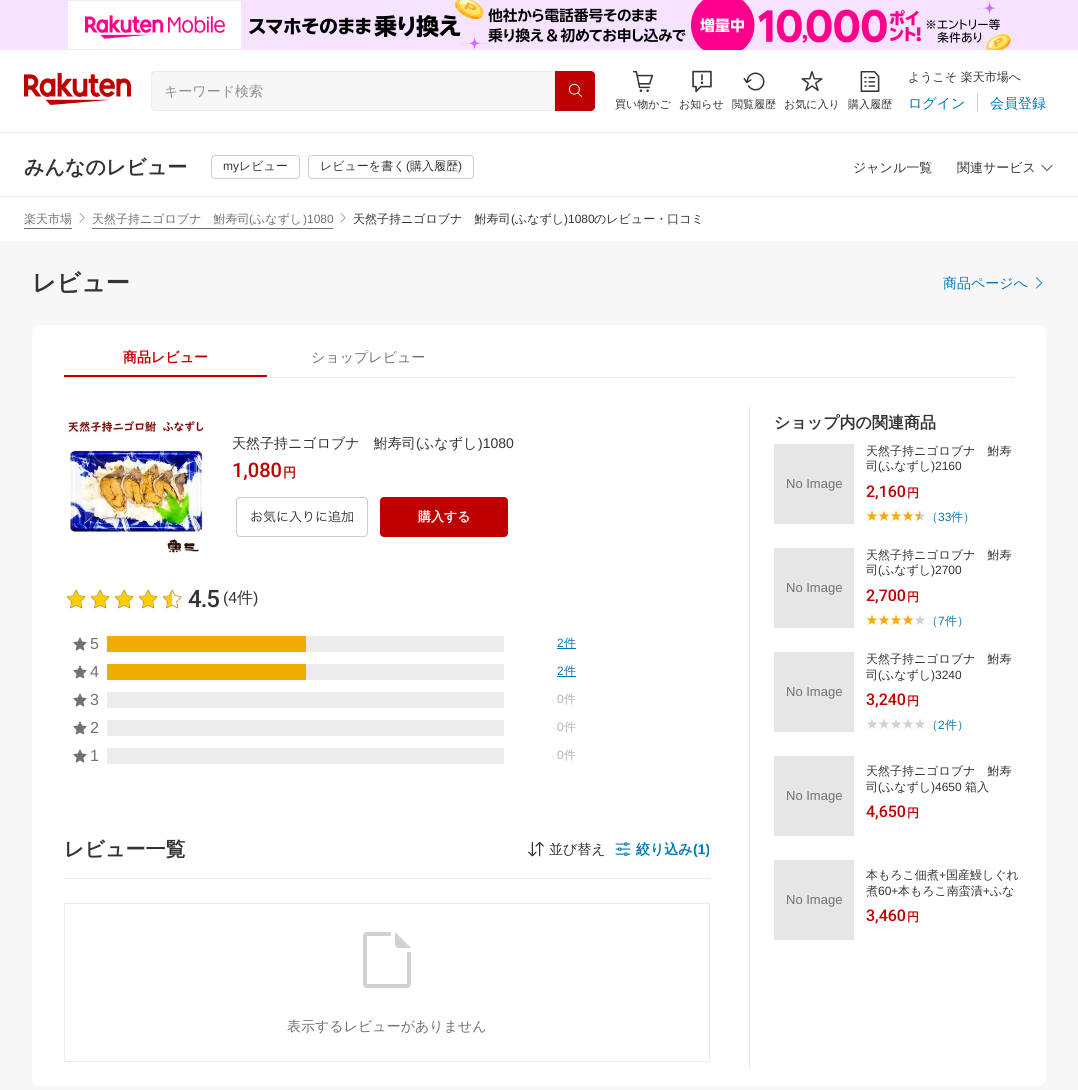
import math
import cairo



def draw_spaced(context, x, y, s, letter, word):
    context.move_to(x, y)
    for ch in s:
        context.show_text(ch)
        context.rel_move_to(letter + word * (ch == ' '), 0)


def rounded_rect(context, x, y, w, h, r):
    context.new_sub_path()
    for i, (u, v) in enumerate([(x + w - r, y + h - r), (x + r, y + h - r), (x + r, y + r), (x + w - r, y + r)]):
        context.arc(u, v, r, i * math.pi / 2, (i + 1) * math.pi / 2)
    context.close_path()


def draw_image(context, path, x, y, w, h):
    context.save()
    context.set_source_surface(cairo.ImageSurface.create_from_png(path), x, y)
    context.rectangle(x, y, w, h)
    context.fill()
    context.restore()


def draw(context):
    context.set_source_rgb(1, 1, 1)
    context.paint()
    draw_image(context, "images/1.png", 0, 0, 1078, 50)
    context.set_source_rgb(235 / 255, 235 / 255, 235 / 255)
    context.rectangle(0, 132, 1078, 1)
    context.fill()
    draw_image(context, "images/2.png", 24, 73, 107, 32)
    context.set_source_rgb(247 / 255, 247 / 255, 247 / 255)
    context.new_path()
    context.move_to(155, 71.5)
    context.line_to(554.5, 71.5)
    context.line_to(554.5, 110.5)
    context.line_to(155, 110.5)
    context.curve_to(153, 110.5, 151.5, 109, 151.5, 107)
    context.line_to(151.5, 75)
    context.curve_to(151.5, 73, 153, 71.5, 155, 71.5)
    context.close_path()
    context.fill_preserve()
    context.set_source_rgb(235 / 255, 235 / 255, 235 / 255)
    context.set_line_width(1)
    context.stroke()
    context.set_source_rgb(191 / 255, 0, 0)
    context.new_path()
    context.move_to(555, 71)
    context.line_to(591, 71)
    context.curve_to(593, 71, 595, 73, 595, 75)
    context.line_to(595, 107)
    context.curve_to(595, 109, 593, 111, 591, 111)
    context.line_to(555, 111)
    context.close_path()
    context.fill()
    draw_image(context, "images/3.png", 568, 83, 14, 14)
    context.set_source_rgb(204 / 255, 204 / 255, 204 / 255)
    context.rectangle(977, 94, 1, 18)
    context.fill()
    draw_image(context, "images/4.png", 632, 71, 22, 21)
    draw_image(context, "images/5.png", 692, 70, 20, 23)
    draw_image(context, "images/6.png", 743, 72, 22, 19)
    draw_image(context, "images/7.png", 801, 71, 22, 21)
    draw_image(context, "images/8.png", 860, 71, 20, 21)
    context.set_source_rgb(235 / 255, 235 / 255, 235 / 255)
    context.rectangle(0, 196, 1078, 1)
    context.fill()
    rounded_rect(context, 211.5, 155.5, 88, 23, 3.5)
    context.set_source_rgb(204 / 255, 204 / 255, 204 / 255)
    context.stroke()
    rounded_rect(context, 308.5, 155.5, 165, 23, 3.5)
    context.stroke()
    draw_image(context, "images/9.png", 1041, 164, 12, 7)
    context.set_source_rgb(113 / 255, 113 / 255, 113 / 255)
    context.rectangle(24, 228, 48, 1)
    context.fill()
    draw_image(context, "images/10.png", 79, 213, 6, 10)
    context.rectangle(92, 228, 241, 1)
    context.fill()
    draw_image(context, "images/10.png", 340, 213, 6, 10)
    context.set_source_rgb(247 / 255, 247 / 255, 247 / 255)
    context.rectangle(0, 241, 1078, 849)
    context.fill()
    draw_image(context, "images/11.png", 1036, 277, 7, 12)
    context.set_source_rgb(1, 1, 1)
    rounded_rect(context, 32, 325, 1014, 761, 8)
    context.fill()
    context.set_source_rgb(191 / 255, 0, 0)
    context.rectangle(64, 375, 203, 2)
    context.fill()
    context.set_source_rgb(235 / 255, 235 / 255, 235 / 255)
    context.rectangle(64, 377, 950, 1)
    context.fill()
    draw_image(context, "images/12.png", 68, 418, 136, 136)
    draw_image(context, "images/13.png", 236, 497, 132, 40)
    context.set_source_rgb(191 / 255, 0, 0)
    rounded_rect(context, 380, 497, 128, 40, 4)
    context.fill()
    draw_image(context, "images/14.png", 67, 589, 19, 20)
    draw_image(context, "images/14.png", 91, 589, 19, 20)
    draw_image(context, "images/14.png", 115, 589, 19, 20)
    draw_image(context, "images/14.png", 139, 589, 19, 20)
    draw_image(context, "images/15.png", 163, 589, 19, 20)
    draw_image(context, "images/16.png", 73, 637, 14, 14)
    context.set_source_rgb(235 / 255, 235 / 255, 235 / 255)
    context.rectangle(306, 636, 198, 16)
    context.fill()
    context.set_source_rgb(242 / 255, 171 / 255, 0)
    context.rectangle(107, 636, 199, 16)
    context.fill()
    context.set_source_rgb(0, 120 / 255, 181 / 255)
    context.rectangle(557, 648, 19, 1)
    context.fill()
    draw_image(context, "images/16.png", 73, 665, 14, 14)
    context.set_source_rgb(235 / 255, 235 / 255, 235 / 255)
    context.rectangle(306, 664, 198, 16)
    context.fill()
    context.set_source_rgb(242 / 255, 171 / 255, 0)
    context.rectangle(107, 664, 199, 16)
    context.fill()
    context.set_source_rgb(0, 120 / 255, 181 / 255)
    context.rectangle(557, 676, 19, 1)
    context.fill()
    draw_image(context, "images/16.png", 73, 693, 14, 14)
    context.set_source_rgb(235 / 255, 235 / 255, 235 / 255)
    context.rectangle(107, 692, 397, 16)
    context.fill()
    draw_image(context, "images/16.png", 73, 721, 14, 14)
    context.rectangle(107, 720, 397, 16)
    context.fill()
    draw_image(context, "images/16.png", 73, 749, 14, 14)
    context.rectangle(107, 748, 397, 16)
    context.fill()
    context.rectangle(64, 878, 646, 1)
    context.fill()
    draw_image(context, "images/17.png", 528, 841, 16, 16)
    draw_image(context, "images/18.png", 615, 842, 16, 14)
    context.rectangle(64.5, 903.5, 645, 158)
    context.stroke()
    draw_image(context, "images/19.png", 363, 932, 48, 56)
    context.rectangle(749, 406, 1, 664)
    context.fill()
    context.set_source_rgb(230 / 255, 230 / 255, 230 / 255)
    context.rectangle(774, 444, 80, 80)
    context.fill()
    draw_image(context, "images/20.png", 866, 510, 12, 11)
    draw_image(context, "images/20.png", 878, 510, 12, 11)
    draw_image(context, "images/20.png", 890, 510, 12, 11)
    draw_image(context, "images/20.png", 902, 510, 12, 11)
    draw_image(context, "images/21.png", 914, 510, 12, 11)
    context.rectangle(774, 548, 80, 80)
    context.fill()
    draw_image(context, "images/20.png", 866, 614, 12, 11)
    draw_image(context, "images/20.png", 878, 614, 12, 11)
    draw_image(context, "images/20.png", 890, 614, 12, 11)
    draw_image(context, "images/20.png", 902, 614, 12, 11)
    draw_image(context, "images/22.png", 914, 615, 12, 10)
    context.rectangle(774, 652, 80, 80)
    context.fill()
    draw_image(context, "images/22.png", 866, 719, 12, 10)
    draw_image(context, "images/22.png", 878, 719, 12, 10)
    draw_image(context, "images/22.png", 890, 719, 12, 10)
    draw_image(context, "images/22.png", 902, 719, 12, 10)
    draw_image(context, "images/22.png", 914, 719, 12, 10)
    context.rectangle(774, 756, 80, 80)
    context.fill()
    context.rectangle(774, 860, 80, 80)
    context.fill()
    context.select_font_face("WenQuanYi Zen Hei Medium")
    context.set_font_size(14)
    context.set_source_rgb(143 / 255, 143 / 255, 143 / 255)
    context.move_to(164, 96)
    context.show_text("キーワード検索")
    context.set_font_size(12)
    context.set_source_rgb(51 / 255, 51 / 255, 51 / 255)
    context.move_to(908, 81)
    context.show_text("ようこそ 楽天市場へ")
    context.set_font_size(14)
    context.set_source_rgb(0, 120 / 255, 181 / 255)
    context.move_to(908, 108)
    context.show_text("ログイン")
    context.move_to(990, 108)
    context.show_text("会員登録")
    context.set_font_size(11)
    context.set_source_rgb(51 / 255, 51 / 255, 51 / 255)
    context.move_to(615, 108)
    context.show_text("買い物かご")
    context.move_to(679, 108)
    context.show_text("お知らせ")
    context.move_to(732, 108)
    context.show_text("閲覧履歴")
    context.move_to(784, 108)
    context.show_text("お気に入り")
    context.move_to(848, 108)
    context.show_text("購入履歴")
    context.select_font_face("WenQuanYi Zen Hei", cairo.FontSlant.NORMAL, cairo.FontWeight.BOLD)
    context.set_font_size(20)
    context.move_to(24, 174)
    context.show_text("みんなのレビュー")
    context.select_font_face("Liberation Sans")
    context.set_font_size(12)
    context.move_to(223, 170)
    context.show_text("my")
    context.select_font_face("WenQuanYi Zen Hei Medium")
    context.move_to(239, 170)
    context.show_text("レビュー")
    context.move_to(320, 170)
    context.show_text("レビューを書く")
    context.select_font_face("Liberation Sans")
    context.move_to(406, 170)
    context.show_text("(")
    context.select_font_face("WenQuanYi Zen Hei Medium")
    context.move_to(410, 170)
    context.show_text("購入履歴")
    context.select_font_face("Liberation Sans")
    context.move_to(458, 170)
    context.show_text(")")
    context.select_font_face("WenQuanYi Zen Hei Medium")
    context.set_font_size(13)
    context.move_to(853, 172)
    context.show_text("ジャンル一覧")
    context.move_to(957, 172)
    context.show_text("関連サービス")
    context.set_font_size(12)
    context.set_source_rgb(113 / 255, 113 / 255, 113 / 255)
    context.move_to(24, 223)
    context.show_text("楽天市場")
    context.move_to(92, 223)
    context.show_text("天然子持ニゴロブナ　鮒寿司")
    context.select_font_face("Liberation Sans")
    context.move_to(249, 223)
    context.show_text("(")
    context.select_font_face("WenQuanYi Zen Hei Medium")
    context.move_to(253, 223)
    context.show_text("ふなずし")
    context.select_font_face("Liberation Sans")
    context.move_to(303, 223)
    context.show_text(")1080")
    context.select_font_face("WenQuanYi Zen Hei Medium")
    context.set_source_rgb(51 / 255, 51 / 255, 51 / 255)
    context.move_to(353, 223)
    context.show_text("天然子持ニゴロブナ　鮒寿司")
    context.select_font_face("Liberation Sans")
    context.move_to(511, 223)
    context.show_text("(")
    context.select_font_face("WenQuanYi Zen Hei Medium")
    context.move_to(515, 223)
    context.show_text("ふなずし")
    context.select_font_face("Liberation Sans")
    context.move_to(564, 223)
    context.show_text(")1080")
    context.select_font_face("WenQuanYi Zen Hei Medium")
    context.move_to(594, 223)
    context.show_text("のレビュー・口コミ")
    context.select_font_face("WenQuanYi Zen Hei", cairo.FontSlant.NORMAL, cairo.FontWeight.BOLD)
    context.set_font_size(24)
    context.move_to(32, 291)
    context.show_text("レビュー")
    context.select_font_face("WenQuanYi Zen Hei Medium")
    context.set_font_size(14)
    context.set_source_rgb(0, 120 / 255, 181 / 255)
    context.move_to(943, 288)
    context.show_text("商品ページへ")
    context.select_font_face("WenQuanYi Zen Hei", cairo.FontSlant.NORMAL, cairo.FontWeight.BOLD)
    context.set_source_rgb(191 / 255, 0, 0)
    context.move_to(123, 362)
    context.show_text("商品レビュー")
    context.select_font_face("WenQuanYi Zen Hei Medium")
    context.set_source_rgb(113 / 255, 113 / 255, 113 / 255)
    context.move_to(311, 362)
    context.show_text("ショップレビュー")
    context.set_source_rgb(51 / 255, 51 / 255, 51 / 255)
    context.move_to(232, 448)
    context.show_text("天然子持ニゴロブナ　鮒寿司")
    context.select_font_face("Liberation Sans")
    context.move_to(416, 448)
    context.show_text("(")
    context.select_font_face("WenQuanYi Zen Hei Medium")
    context.move_to(420, 448)
    context.show_text("ふなずし")
    context.select_font_face("Liberation Sans")
    context.move_to(478, 448)
    context.show_text(")1080")
    context.select_font_face("Roboto Medium")
    context.set_font_size(20)
    context.set_source_rgb(191 / 255, 0, 0)
    context.move_to(232, 477)
    context.show_text("1,080")
    context.select_font_face("WenQuanYi Zen Hei", cairo.FontSlant.NORMAL, cairo.FontWeight.BOLD)
    context.set_font_size(13)
    context.move_to(283, 477)
    context.show_text("円")
    context.set_source_rgb(1, 1, 1)
    context.move_to(418, 521)
    context.show_text("購入する")
    context.select_font_face("Roboto Medium")
    context.set_font_size(24)
    context.set_source_rgb(51 / 255, 51 / 255, 51 / 255)
    draw_spaced(context, 188, 607, "4.5", -1, 0)
    context.select_font_face("Liberation Sans")
    context.set_font_size(16)
    context.move_to(223, 603)
    context.show_text("(4")
    context.select_font_face("WenQuanYi Zen Hei Medium")
    context.move_to(237, 603)
    context.show_text("件")
    context.select_font_face("Liberation Sans")
    context.move_to(253, 603)
    context.show_text(")")
    context.set_source_rgb(113 / 255, 113 / 255, 113 / 255)
    context.move_to(90, 649)
    context.show_text("5")
    context.set_font_size(12)
    context.set_source_rgb(0, 120 / 255, 181 / 255)
    context.move_to(557, 647)
    context.show_text("2")
    context.select_font_face("WenQuanYi Zen Hei Medium")
    context.move_to(564, 647)
    context.show_text("件")
    context.select_font_face("Liberation Sans")
    context.set_font_size(16)
    context.set_source_rgb(113 / 255, 113 / 255, 113 / 255)
    context.move_to(90, 677)
    context.show_text("4")
    context.set_font_size(12)
    context.set_source_rgb(0, 120 / 255, 181 / 255)
    context.move_to(557, 675)
    context.show_text("2")
    context.select_font_face("WenQuanYi Zen Hei Medium")
    context.move_to(564, 675)
    context.show_text("件")
    context.select_font_face("Liberation Sans")
    context.set_font_size(16)
    context.set_source_rgb(113 / 255, 113 / 255, 113 / 255)
    context.move_to(90, 705)
    context.show_text("3")
    context.set_font_size(12)
    context.set_source_rgb(179 / 255, 179 / 255, 179 / 255)
    context.move_to(557, 703)
    context.show_text("0")
    context.select_font_face("WenQuanYi Zen Hei Medium")
    context.move_to(564, 703)
    context.show_text("件")
    context.select_font_face("Liberation Sans")
    context.set_font_size(16)
    context.set_source_rgb(113 / 255, 113 / 255, 113 / 255)
    context.move_to(90, 733)
    context.show_text("2")
    context.set_font_size(12)
    context.set_source_rgb(179 / 255, 179 / 255, 179 / 255)
    context.move_to(557, 731)
    context.show_text("0")
    context.select_font_face("WenQuanYi Zen Hei Medium")
    context.move_to(564, 731)
    context.show_text("件")
    context.select_font_face("Liberation Sans")
    context.set_font_size(16)
    context.set_source_rgb(113 / 255, 113 / 255, 113 / 255)
    context.move_to(90, 761)
    context.show_text("1")
    context.set_font_size(12)
    context.set_source_rgb(179 / 255, 179 / 255, 179 / 255)
    context.move_to(557, 759)
    context.show_text("0")
    context.select_font_face("WenQuanYi Zen Hei Medium")
    context.move_to(564, 759)
    context.show_text("件")
    context.select_font_face("WenQuanYi Zen Hei", cairo.FontSlant.NORMAL, cairo.FontWeight.BOLD)
    context.set_font_size(20)
    context.set_source_rgb(51 / 255, 51 / 255, 51 / 255)
    context.move_to(64, 856)
    context.show_text("レビュー一覧")
    context.select_font_face("WenQuanYi Zen Hei Medium")
    context.set_font_size(14)
    context.move_to(549, 854)
    context.show_text("並び替え")
    context.select_font_face("WenQuanYi Zen Hei", cairo.FontSlant.NORMAL, cairo.FontWeight.BOLD)
    context.set_source_rgb(0, 120 / 255, 181 / 255)
    context.move_to(636, 854)
    context.show_text("絞り込み")
    context.select_font_face("Liberation Sans", cairo.FontSlant.NORMAL, cairo.FontWeight.BOLD)
    context.move_to(693, 854)
    context.show_text("(1)")
    context.select_font_face("WenQuanYi Zen Hei Medium")
    context.set_source_rgb(113 / 255, 113 / 255, 113 / 255)
    context.move_to(287, 1031)
    context.show_text("表示するレビューがありません")
    context.select_font_face("WenQuanYi Zen Hei", cairo.FontSlant.NORMAL, cairo.FontWeight.BOLD)
    context.set_font_size(16)
    context.set_source_rgb(51 / 255, 51 / 255, 51 / 255)
    context.move_to(774, 428)
    context.show_text("ショップ内の関連商品")
    context.select_font_face("Liberation Sans")
    context.set_font_size(13)
    context.set_source_rgb(113 / 255, 113 / 255, 113 / 255)
    context.move_to(786, 488)
    context.show_text("No Image")
    context.select_font_face("WenQuanYi Zen Hei Medium")
    context.set_font_size(12)
    context.set_source_rgb(51 / 255, 51 / 255, 51 / 255)
    context.move_to(866, 455)
    context.show_text("天然子持ニゴロブナ　鮒寿")
    context.move_to(866, 470)
    context.show_text("司")
    context.select_font_face("Liberation Sans")
    context.move_to(878, 470)
    context.show_text("(")
    context.select_font_face("WenQuanYi Zen Hei Medium")
    context.move_to(882, 470)
    context.show_text("ふなずし")
    context.select_font_face("Liberation Sans")
    context.move_to(931, 470)
    context.show_text(")2160")
    context.select_font_face("Roboto Medium")
    context.set_font_size(16)
    context.set_source_rgb(191 / 255, 0, 0)
    context.move_to(866, 497)
    context.show_text("2,160")
    context.select_font_face("WenQuanYi Zen Hei", cairo.FontSlant.NORMAL, cairo.FontWeight.BOLD)
    context.set_font_size(12)
    context.move_to(907, 497)
    context.show_text("円")
    context.select_font_face("WenQuanYi Zen Hei Medium")
    context.set_source_rgb(0, 120 / 255, 181 / 255)
    context.move_to(926, 521)
    context.show_text("（")
    context.select_font_face("Liberation Sans")
    context.move_to(938, 521)
    context.show_text("33")
    context.select_font_face("WenQuanYi Zen Hei Medium")
    context.move_to(951, 521)
    context.show_text("件）")
    context.select_font_face("Liberation Sans")
    context.set_font_size(13)
    context.set_source_rgb(113 / 255, 113 / 255, 113 / 255)
    context.move_to(786, 592)
    context.show_text("No Image")
    context.select_font_face("WenQuanYi Zen Hei Medium")
    context.set_font_size(12)
    context.set_source_rgb(51 / 255, 51 / 255, 51 / 255)
    context.move_to(866, 559)
    context.show_text("天然子持ニゴロブナ　鮒寿")
    context.move_to(866, 574)
    context.show_text("司")
    context.select_font_face("Liberation Sans")
    context.move_to(878, 574)
    context.show_text("(")
    context.select_font_face("WenQuanYi Zen Hei Medium")
    context.move_to(882, 574)
    context.show_text("ふなずし")
    context.select_font_face("Liberation Sans")
    context.move_to(931, 574)
    context.show_text(")2700")
    context.select_font_face("Roboto Medium")
    context.set_font_size(16)
    context.set_source_rgb(191 / 255, 0, 0)
    context.move_to(866, 601)
    context.show_text("2,700")
    context.select_font_face("WenQuanYi Zen Hei", cairo.FontSlant.NORMAL, cairo.FontWeight.BOLD)
    context.set_font_size(12)
    context.move_to(907, 601)
    context.show_text("円")
    context.select_font_face("WenQuanYi Zen Hei Medium")
    context.set_source_rgb(0, 120 / 255, 181 / 255)
    context.move_to(926, 625)
    context.show_text("（")
    context.select_font_face("Liberation Sans")
    context.move_to(938, 625)
    context.show_text("7")
    context.select_font_face("WenQuanYi Zen Hei Medium")
    context.move_to(945, 625)
    context.show_text("件）")
    context.select_font_face("Liberation Sans")
    context.set_font_size(13)
    context.set_source_rgb(113 / 255, 113 / 255, 113 / 255)
    context.move_to(786, 696)
    context.show_text("No Image")
    context.select_font_face("WenQuanYi Zen Hei Medium")
    context.set_font_size(12)
    context.set_source_rgb(51 / 255, 51 / 255, 51 / 255)
    context.move_to(866, 663)
    context.show_text("天然子持ニゴロブナ　鮒寿")
    context.move_to(866, 679)
    context.show_text("司")
    context.select_font_face("Liberation Sans")
    context.move_to(878, 679)
    context.show_text("(")
    context.select_font_face("WenQuanYi Zen Hei Medium")
    context.move_to(882, 679)
    context.show_text("ふなずし")
    context.select_font_face("Liberation Sans")
    context.move_to(931, 679)
    context.show_text(")3240")
    context.select_font_face("Roboto Medium")
    context.set_font_size(16)
    context.set_source_rgb(191 / 255, 0, 0)
    context.move_to(866, 705)
    context.show_text("3,240")
    context.select_font_face("WenQuanYi Zen Hei", cairo.FontSlant.NORMAL, cairo.FontWeight.BOLD)
    context.set_font_size(12)
    context.move_to(907, 705)
    context.show_text("円")
    context.select_font_face("WenQuanYi Zen Hei Medium")
    context.set_source_rgb(0, 120 / 255, 181 / 255)
    context.move_to(926, 729)
    context.show_text("（")
    context.select_font_face("Liberation Sans")
    context.move_to(938, 729)
    context.show_text("2")
    context.select_font_face("WenQuanYi Zen Hei Medium")
    context.move_to(945, 729)
    context.show_text("件）")
    context.select_font_face("Liberation Sans")
    context.set_font_size(13)
    context.set_source_rgb(113 / 255, 113 / 255, 113 / 255)
    context.move_to(786, 800)
    context.show_text("No Image")
    context.select_font_face("WenQuanYi Zen Hei Medium")
    context.set_font_size(12)
    context.set_source_rgb(51 / 255, 51 / 255, 51 / 255)
    context.move_to(866, 775)
    context.show_text("天然子持ニゴロブナ　鮒寿")
    context.move_to(866, 791)
    context.show_text("司")
    context.select_font_face("Liberation Sans")
    context.move_to(878, 791)
    context.show_text("(")
    context.select_font_face("WenQuanYi Zen Hei Medium")
    context.move_to(882, 791)
    context.show_text("ふなずし")
    context.select_font_face("Liberation Sans")
    context.move_to(931, 791)
    context.show_text(")4650")
    context.select_font_face("WenQuanYi Zen Hei Medium")
    context.move_to(965, 791)
    context.show_text("箱入")
    context.select_font_face("Roboto Medium")
    context.set_font_size(16)
    context.set_source_rgb(191 / 255, 0, 0)
    context.move_to(866, 817)
    context.show_text("4,650")
    context.select_font_face("WenQuanYi Zen Hei", cairo.FontSlant.NORMAL, cairo.FontWeight.BOLD)
    context.set_font_size(12)
    context.move_to(907, 817)
    context.show_text("円")
    context.select_font_face("Liberation Sans")
    context.set_font_size(13)
    context.set_source_rgb(113 / 255, 113 / 255, 113 / 255)
    context.move_to(786, 904)
    context.show_text("No Image")
    context.select_font_face("WenQuanYi Zen Hei Medium")
    context.set_font_size(12)
    context.set_source_rgb(51 / 255, 51 / 255, 51 / 255)
    context.move_to(866, 879)
    context.show_text("本もろこ佃煮")
    context.select_font_face("Liberation Sans")
    context.move_to(939, 879)
    context.show_text("+")
    context.select_font_face("WenQuanYi Zen Hei Medium")
    context.move_to(946, 879)
    context.show_text("国産鰻しぐれ")
    context.move_to(866, 895)
    context.show_text("煮")
    context.select_font_face("Liberation Sans")
    context.move_to(878, 895)
    context.show_text("60+")
    context.select_font_face("WenQuanYi Zen Hei Medium")
    context.move_to(898, 895)
    context.show_text("本もろこ南蛮漬")
    context.select_font_face("Liberation Sans")
    context.move_to(983, 895)
    context.show_text("+")
    context.select_font_face("WenQuanYi Zen Hei Medium")
    context.move_to(990, 895)
    context.show_text("ふな")
    context.select_font_face("Roboto Medium")
    context.set_font_size(16)
    context.set_source_rgb(191 / 255, 0, 0)
    context.move_to(866, 921)
    context.show_text("3,460")
    context.select_font_face("WenQuanYi Zen Hei", cairo.FontSlant.NORMAL, cairo.FontWeight.BOLD)
    context.set_font_size(12)
    context.move_to(907, 921)
    context.show_text("円")


surface = cairo.ImageSurface(cairo.Format.RGB24, 1078, 1090)
context = cairo.Context(surface)
options = cairo.FontOptions()
options.set_hint_metrics(cairo.HintMetrics.OFF)
options.set_hint_style(cairo.HintStyle.NONE)
context.set_font_options(options)
context.set_miter_limit(4)
draw(context)
surface.write_to_png("out.png")
